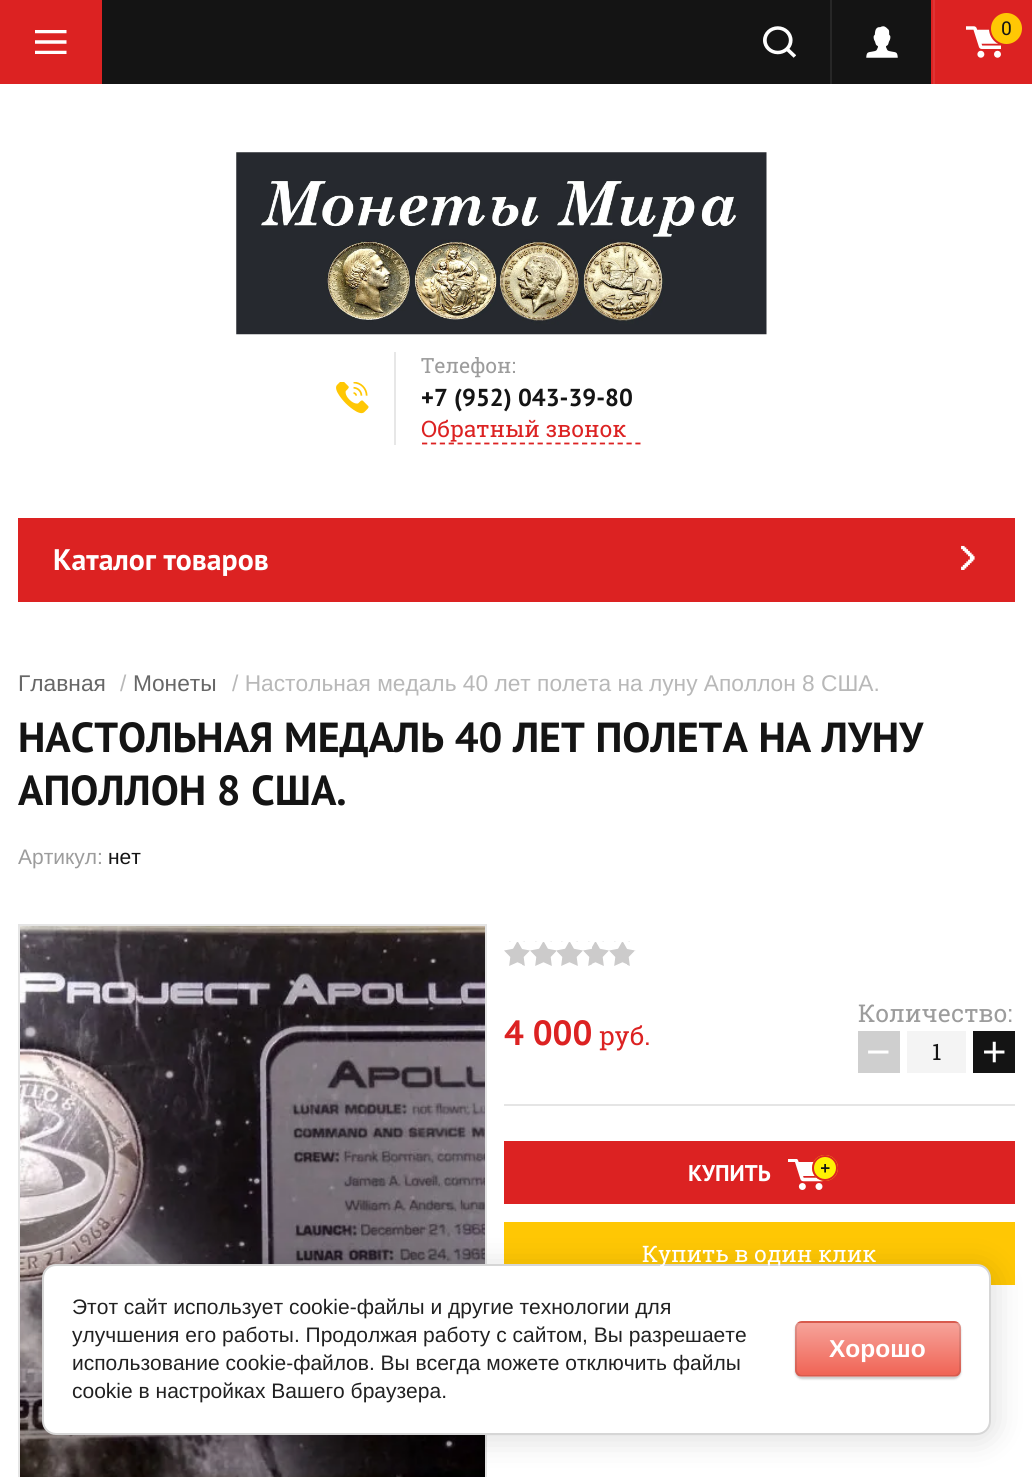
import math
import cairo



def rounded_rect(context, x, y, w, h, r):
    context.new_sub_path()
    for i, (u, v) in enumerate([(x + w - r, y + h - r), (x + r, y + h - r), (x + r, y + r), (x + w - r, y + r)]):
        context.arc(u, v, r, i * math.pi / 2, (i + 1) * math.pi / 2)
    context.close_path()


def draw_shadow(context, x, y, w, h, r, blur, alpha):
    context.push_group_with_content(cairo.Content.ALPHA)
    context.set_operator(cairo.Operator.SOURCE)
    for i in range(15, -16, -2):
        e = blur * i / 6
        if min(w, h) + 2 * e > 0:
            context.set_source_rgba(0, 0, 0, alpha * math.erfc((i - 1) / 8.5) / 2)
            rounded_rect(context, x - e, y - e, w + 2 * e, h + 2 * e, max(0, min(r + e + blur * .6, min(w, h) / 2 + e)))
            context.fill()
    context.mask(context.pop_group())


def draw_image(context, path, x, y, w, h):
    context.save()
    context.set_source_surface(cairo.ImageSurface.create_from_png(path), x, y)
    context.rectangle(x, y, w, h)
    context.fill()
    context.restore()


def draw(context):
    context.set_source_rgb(1, 1, 1)
    context.paint()
    context.set_source_rgb(20 / 255, 20 / 255, 20 / 255)
    context.rectangle(102, 0, 829, 84)
    context.fill()
    context.set_source_rgb(220 / 255, 34 / 255, 34 / 255)
    context.rectangle(0, 0, 102, 84)
    context.fill()
    draw_image(context, "images/1.png", 35, 30, 32, 24)
    draw_image(context, "images/2.png", 763, 26, 33, 32)
    draw_image(context, "images/3.png", 866, 26, 32, 32)
    context.rectangle(931, 0, 101, 84)
    context.fill()
    context.set_source_rgb(223 / 255, 52 / 255, 52 / 255)
    context.rectangle(933, 0, 2, 84)
    context.fill()
    context.set_source_rgb(39 / 255, 39 / 255, 39 / 255)
    context.rectangle(830, 0, 2, 84)
    context.fill()
    draw_image(context, "images/4.png", 966, 26, 35, 32)
    context.set_source_rgb(1, 199 / 255, 4 / 255)
    context.arc(1006.5, 28.5, 16.5, 0, 2 * math.pi)
    context.fill_preserve()
    context.set_source_rgb(220 / 255, 34 / 255, 34 / 255)
    context.stroke()
    draw_image(context, "images/5.png", 236, 152, 531, 183)
    context.set_source_rgb(231 / 255, 231 / 255, 231 / 255)
    context.rectangle(394, 352, 2, 93)
    context.fill()
    draw_image(context, "images/6.png", 336, 382, 33, 32)
    context.new_path()
    context.move_to(422, 443.5)
    context.line_to(640.5, 443.5)
    context.set_source_rgb(220 / 255, 34 / 255, 34 / 255)
    context.set_line_width(1.8)
    context.set_dash([5.25, 3.64])
    context.stroke()
    context.rectangle(18, 518, 997, 84)
    context.fill()
    draw_image(context, "images/7.png", 961, 545, 14, 25)
    draw_image(context, "images/8.png", 20, 926, 465, 551)
    context.rectangle(19, 925, 467, 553)
    context.set_source_rgb(229 / 255, 229 / 255, 229 / 255)
    context.set_line_width(2)
    context.set_dash([])
    context.stroke()
    draw_image(context, "images/9.png", 504, 941, 132, 25)
    context.set_source_rgb(207 / 255, 207 / 255, 207 / 255)
    context.rectangle(858, 1031, 42, 42)
    context.fill()
    context.set_source_rgb(244 / 255, 244 / 255, 244 / 255)
    context.rectangle(907, 1031, 59, 42)
    context.fill()
    context.set_source_rgb(20 / 255, 20 / 255, 20 / 255)
    context.rectangle(973, 1031, 42, 42)
    context.fill()
    context.set_source_rgb(229 / 255, 229 / 255, 229 / 255)
    context.rectangle(504, 1104, 511, 2)
    context.fill()
    context.set_source_rgb(220 / 255, 34 / 255, 34 / 255)
    context.rectangle(504, 1141, 511, 63)
    context.fill()
    draw_image(context, "images/10.png", 788, 1159, 35, 31)
    context.set_source_rgb(1, 240 / 255, 3 / 255)
    context.arc(825, 1168, 13, 0, 2 * math.pi)
    context.fill()
    draw_image(context, "images/11.png", 821, 1164, 9, 9)
    context.arc(825, 1168, 12, 0, 2 * math.pi)
    context.set_source_rgb(220 / 255, 34 / 255, 34 / 255)
    context.stroke()
    context.set_source_rgb(1, 199 / 255, 4 / 255)
    context.rectangle(504, 1222, 511, 63)
    context.fill()
    context.set_source_rgb(0, 0, 0)
    draw_shadow(context, 46, 1267, 948, 172, 14, 16, 0.14)
    context.set_source_rgb(1, 1, 1)
    rounded_rect(context, 43, 1265, 947, 169, 13)
    context.fill_preserve()
    context.set_source_rgb(214 / 255, 214 / 255, 214 / 255)
    context.stroke()
    context.set_source_rgb(0, 0, 0)
    draw_shadow(context, 795, 1323, 166, 56, 7, 1, 0.2)
    context.save()
    rounded_rect(context, 795, 1321, 166, 56, 7)
    context.clip()
    gradient = cairo.LinearGradient(878, 1271, 878, 1323)
    gradient.add_color_stop_rgba(0, 246 / 255, 163 / 255, 154 / 255, 1)
    gradient.add_color_stop_rgba(1, 240 / 255, 99 / 255, 84 / 255, 1)
    context.set_source(gradient)
    context.rectangle(795, 1321, 166, 2)
    context.fill()
    gradient = cairo.LinearGradient(878, 1323, 878, 1376)
    gradient.add_color_stop_rgba(0, 246 / 255, 163 / 255, 154 / 255, 1)
    gradient.add_color_stop_rgba(1, 240 / 255, 99 / 255, 84 / 255, 1)
    context.set_source(gradient)
    context.rectangle(795, 1323, 166, 53)
    context.fill()
    gradient = cairo.LinearGradient(878, 1376, 878, 1428)
    gradient.add_color_stop_rgba(0, 246 / 255, 163 / 255, 154 / 255, 1)
    gradient.add_color_stop_rgba(1, 240 / 255, 99 / 255, 84 / 255, 1)
    context.set_source(gradient)
    context.rectangle(795, 1376, 166, 1)
    context.fill()
    context.restore()
    rounded_rect(context, 796, 1322, 164, 54, 6)
    context.set_source_rgba(0, 0, 0, 0.1)
    context.stroke()
    context.select_font_face("Roboto Slab")
    context.set_font_size(19)
    context.set_source_rgb(20 / 255, 20 / 255, 20 / 255)
    context.move_to(1001, 35)
    context.show_text("0")
    context.set_font_size(21)
    context.set_source_rgb(156 / 255, 156 / 255, 156 / 255)
    context.move_to(421, 373)
    context.show_text("Телефон:")
    context.select_font_face("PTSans", cairo.FontSlant.NORMAL, cairo.FontWeight.BOLD)
    context.set_font_size(24.5)
    context.set_source_rgb(20 / 255, 20 / 255, 20 / 255)
    context.move_to(421, 406)
    context.show_text("+7 (952) 043-39-80")
    context.select_font_face("Roboto Slab")
    context.set_font_size(22.75)
    context.set_source_rgb(220 / 255, 34 / 255, 34 / 255)
    context.move_to(421, 437)
    context.show_text("Обратный звонок")
    context.select_font_face("PTSans", cairo.FontSlant.NORMAL, cairo.FontWeight.BOLD)
    context.set_font_size(29.75)
    context.set_source_rgb(1, 1, 1)
    context.move_to(53, 570)
    context.show_text("Каталог товаров")
    context.select_font_face("Liberation Sans")
    context.set_font_size(22.75)
    context.set_source_rgb(103 / 255, 103 / 255, 103 / 255)
    context.move_to(18, 691)
    context.show_text("Главная")
    context.set_source_rgb(184 / 255, 184 / 255, 184 / 255)
    context.move_to(120, 691)
    context.show_text("/")
    context.set_source_rgb(103 / 255, 103 / 255, 103 / 255)
    context.move_to(133, 691)
    context.show_text("Монеты")
    context.set_source_rgb(184 / 255, 184 / 255, 184 / 255)
    context.move_to(232, 691)
    context.show_text("/ Настольная медаль 40 лет полета на луну Аполлон 8 США.")
    context.select_font_face("PTSans", cairo.FontSlant.NORMAL, cairo.FontWeight.BOLD)
    context.set_font_size(42)
    context.set_source_rgb(20 / 255, 20 / 255, 20 / 255)
    context.move_to(18, 752)
    context.show_text("НАСТОЛЬНАЯ МЕДАЛЬ 40 ЛЕТ ПОЛЕТА НА ЛУНУ")
    context.move_to(18, 805)
    context.show_text("АПОЛЛОН 8 США.")
    context.select_font_face("Liberation Sans")
    context.set_font_size(21)
    context.set_source_rgb(156 / 255, 156 / 255, 156 / 255)
    context.move_to(18, 864)
    context.show_text("Артикул:")
    context.set_source_rgb(20 / 255, 20 / 255, 20 / 255)
    context.move_to(108, 864)
    context.show_text("нет")
    context.select_font_face("PTSans", cairo.FontSlant.NORMAL, cairo.FontWeight.BOLD)
    context.set_font_size(35)
    context.set_source_rgb(220 / 255, 34 / 255, 34 / 255)
    context.move_to(504, 1045)
    context.show_text("4 000")
    context.select_font_face("Roboto Slab")
    context.set_font_size(26)
    context.move_to(599, 1045)
    context.show_text("руб.")
    context.set_font_size(24.5)
    context.set_source_rgb(156 / 255, 156 / 255, 156 / 255)
    context.move_to(858, 1022)
    context.show_text("Количество:")
    context.select_font_face("Liberation Sans")
    context.set_font_size(42)
    context.set_source_rgb(1, 1, 1)
    context.move_to(866, 1066)
    context.show_text("−")
    context.select_font_face("Roboto Slab")
    context.set_font_size(22.75)
    context.set_source_rgb(20 / 255, 20 / 255, 20 / 255)
    context.move_to(932, 1060)
    context.show_text("1")
    context.select_font_face("Liberation Sans")
    context.set_font_size(42)
    context.set_source_rgb(1, 1, 1)
    context.move_to(982, 1066)
    context.show_text("+")
    context.select_font_face("PTSans", cairo.FontSlant.NORMAL, cairo.FontWeight.BOLD)
    context.set_font_size(22.75)
    context.move_to(688, 1181)
    context.show_text("КУПИТЬ")
    context.select_font_face("Roboto Slab")
    context.move_to(642, 1262)
    context.show_text("Купить в один клик")
    context.select_font_face("Liberation Sans")
    context.set_font_size(21)
    context.set_source_rgb(33 / 255, 33 / 255, 33 / 255)
    context.move_to(72, 1314)
    context.show_text("Этот сайт использует cookie-файлы и другие технологии для")
    context.move_to(72, 1342)
    context.show_text("улучшения его работы. Продолжая работу с сайтом, Вы разрешаете")
    context.move_to(72, 1370)
    context.show_text("использование cookie-файлов. Вы всегда можете отключить файлы")
    context.move_to(72, 1398)
    context.show_text("cookie в настройках Вашего браузера.")
    context.select_font_face("Liberation Sans", cairo.FontSlant.NORMAL, cairo.FontWeight.BOLD)
    context.set_font_size(24.5)
    context.set_source_rgb(1, 1, 1)
    context.move_to(829, 1357)
    context.show_text("Хорошо")


surface = cairo.ImageSurface(cairo.Format.RGB24, 1032, 1477)
context = cairo.Context(surface)
options = cairo.FontOptions()
options.set_hint_metrics(cairo.HintMetrics.OFF)
options.set_hint_style(cairo.HintStyle.NONE)
context.set_font_options(options)
context.set_miter_limit(4)
draw(context)
surface.write_to_png("out.png")
